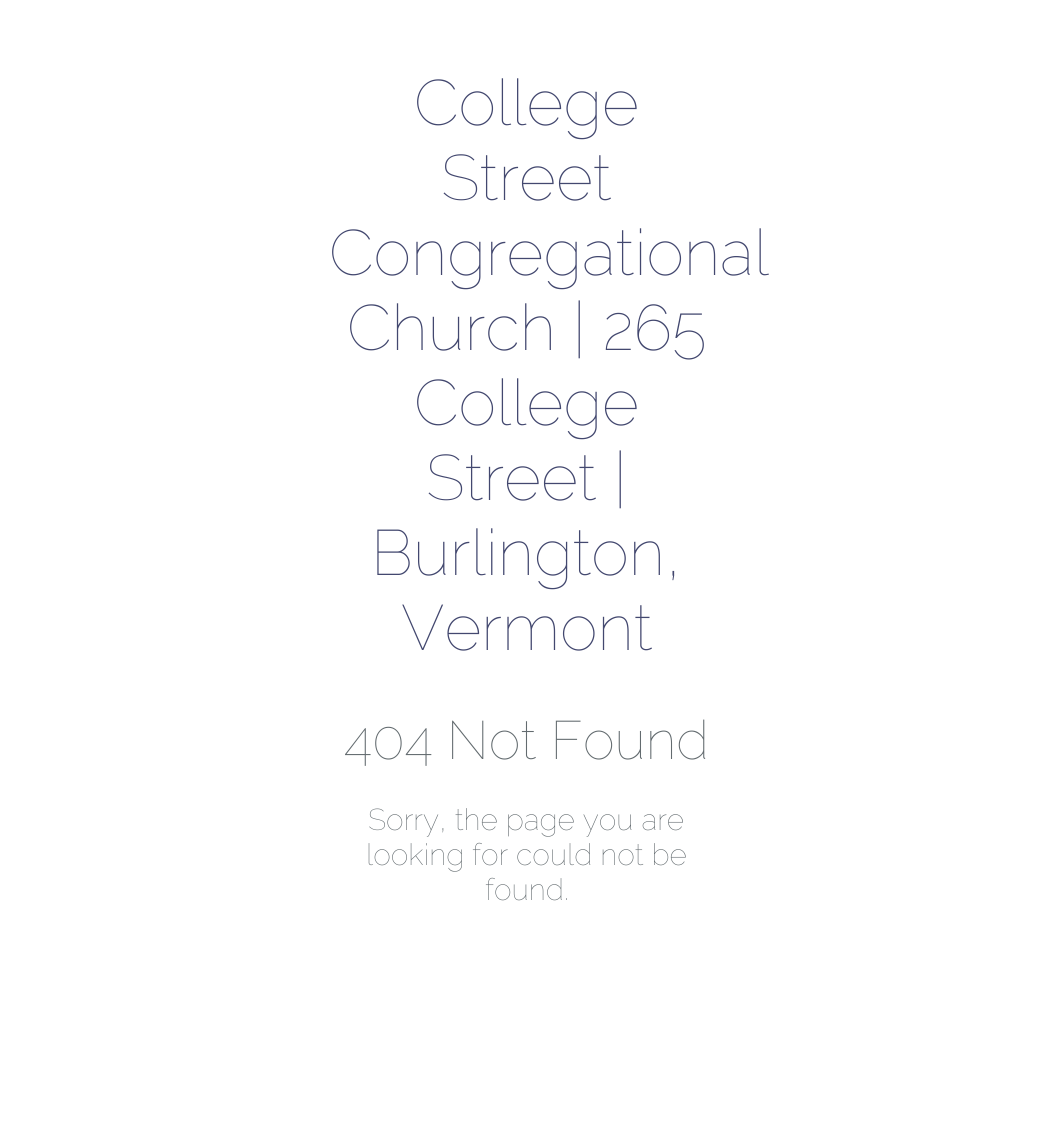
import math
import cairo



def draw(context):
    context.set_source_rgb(1, 1, 1)
    context.paint()
    context.select_font_face("Raleway Thin")
    context.set_font_size(64)
    context.set_source_rgb(67 / 255, 72 / 255, 111 / 255)
    context.move_to(414, 125)
    context.show_text("College")
    context.move_to(441, 200)
    context.show_text("Street")
    context.move_to(329, 275)
    context.show_text("Congregational")
    context.move_to(347, 350)
    context.show_text("Church | 265")
    context.move_to(414, 425)
    context.show_text("College")
    context.move_to(426, 500)
    context.show_text("Street |")
    context.move_to(371, 575)
    context.show_text("Burlington,")
    context.move_to(401, 650)
    context.show_text("Vermont")
    context.set_font_size(54)
    context.set_source_rgb(99 / 255, 107 / 255, 111 / 255)
    context.move_to(344, 759)
    context.show_text("404 Not Found")
    context.set_font_size(30)
    context.move_to(368, 830)
    context.show_text("Sorry, the page you are")
    context.move_to(366, 865)
    context.show_text("looking for could not be")
    context.move_to(485, 900)
    context.show_text("found.")


surface = cairo.ImageSurface(cairo.Format.RGB24, 1053, 1129)
context = cairo.Context(surface)
options = cairo.FontOptions()
options.set_hint_metrics(cairo.HintMetrics.OFF)
options.set_hint_style(cairo.HintStyle.NONE)
context.set_font_options(options)
context.set_miter_limit(4)
draw(context)
surface.write_to_png("out.png")
